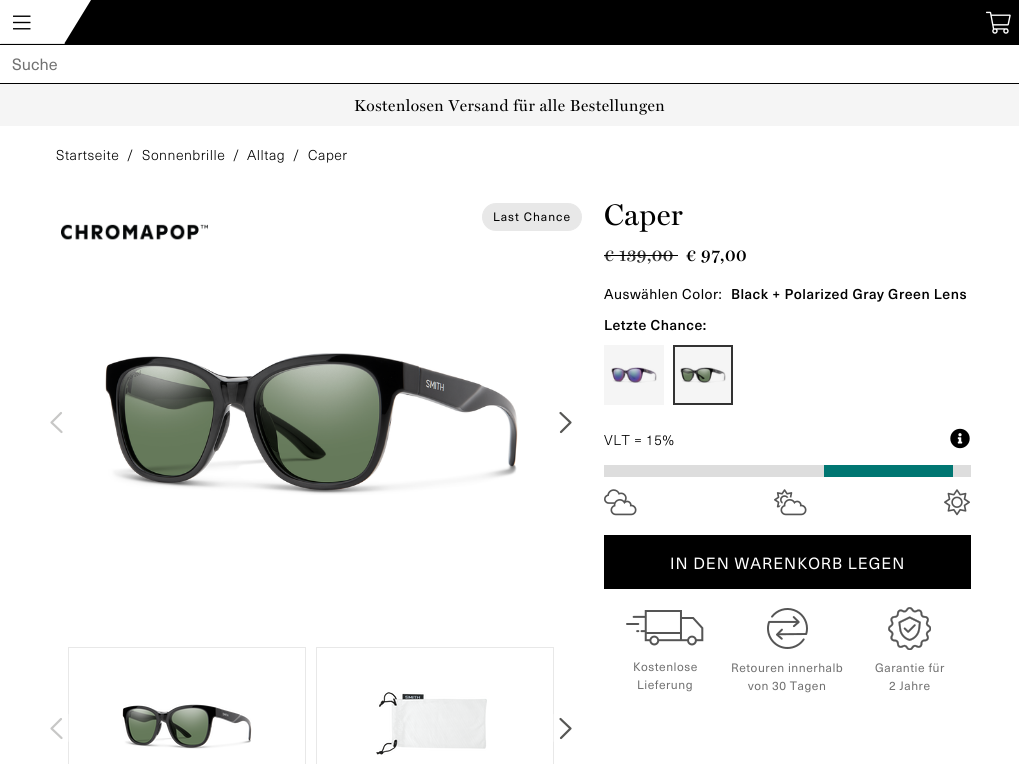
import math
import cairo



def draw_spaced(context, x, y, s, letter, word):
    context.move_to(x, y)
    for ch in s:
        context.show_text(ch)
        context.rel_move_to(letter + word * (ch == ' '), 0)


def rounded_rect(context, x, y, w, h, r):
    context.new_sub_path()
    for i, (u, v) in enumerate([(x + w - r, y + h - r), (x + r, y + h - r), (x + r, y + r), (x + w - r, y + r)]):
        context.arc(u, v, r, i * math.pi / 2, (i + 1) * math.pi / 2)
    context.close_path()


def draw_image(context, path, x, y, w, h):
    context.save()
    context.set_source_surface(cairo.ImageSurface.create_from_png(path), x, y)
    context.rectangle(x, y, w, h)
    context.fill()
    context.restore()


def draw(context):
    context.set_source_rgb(1, 1, 1)
    context.paint()
    context.set_source_rgb(0, 0, 0)
    context.rectangle(64, 0, 955, 44)
    context.fill()
    context.set_source_rgb(1, 1, 1)
    context.new_path()
    context.move_to(27, 0)
    context.line_to(91, 0)
    context.line_to(64, 44)
    context.line_to(0, 44)
    context.close_path()
    context.fill()
    context.set_source_rgb(232 / 255, 232 / 255, 232 / 255)
    context.new_path()
    context.move_to(1, 43)
    context.line_to(65, 43)
    context.line_to(64, 44)
    context.line_to(0, 44)
    context.close_path()
    context.fill()
    draw_image(context, "images/1.png", 13, 15, 18, 15)
    draw_image(context, "images/2.png", 986, 11, 25, 23)
    context.set_source_rgb(0, 0, 0)
    context.rectangle(0, 44, 1019, 1)
    context.fill()
    context.rectangle(0, 83, 1019, 1)
    context.fill()
    context.set_source_rgb(245 / 255, 245 / 255, 245 / 255)
    context.rectangle(0, 84, 1019, 42)
    context.fill()
    context.set_source_rgb(232 / 255, 232 / 255, 232 / 255)
    rounded_rect(context, 482.5, 203.5, 99, 27, 13.5)
    context.fill_preserve()
    context.set_line_width(1)
    context.stroke()
    draw_image(context, "images/3.png", 61, 224, 147, 16)
    context.new_path()
    context.move_to(61.5, 432)
    context.line_to(51.5, 422.5)
    context.line_to(61, 413)
    context.set_source_rgb(199 / 255, 199 / 255, 198 / 255)
    context.set_line_width(2.2)
    context.set_line_cap(cairo.LineCap.ROUND)
    context.set_line_join(cairo.LineJoin.ROUND)
    context.stroke()
    draw_image(context, "images/4.png", 105, 353, 413, 142)
    context.new_path()
    context.move_to(560.5, 413)
    context.line_to(570.5, 422.5)
    context.line_to(561, 432)
    context.set_source_rgb(86 / 255, 86 / 255, 84 / 255)
    context.stroke()
    context.rectangle(68.5, 647.5, 237, 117)
    context.set_source_rgb(232 / 255, 232 / 255, 232 / 255)
    context.set_line_width(1)
    context.set_line_cap(cairo.LineCap.BUTT)
    context.set_line_join(cairo.LineJoin.MITER)
    context.stroke()
    context.set_source_rgba(1, 1, 1, 0.3)
    context.arc(57, 728, 18, 0, 2 * math.pi)
    context.fill()
    context.new_path()
    context.move_to(61.5, 738)
    context.line_to(51.5, 728.5)
    context.line_to(61, 719)
    context.set_source_rgb(199 / 255, 199 / 255, 198 / 255)
    context.set_line_width(2.2)
    context.set_line_cap(cairo.LineCap.ROUND)
    context.set_line_join(cairo.LineJoin.ROUND)
    context.stroke()
    draw_image(context, "images/5.png", 122, 704, 130, 45)
    context.rectangle(316.5, 647.5, 237, 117)
    context.set_source_rgb(232 / 255, 232 / 255, 232 / 255)
    context.set_line_width(1)
    context.set_line_cap(cairo.LineCap.BUTT)
    context.set_line_join(cairo.LineJoin.MITER)
    context.stroke()
    draw_image(context, "images/6.png", 376, 692, 111, 63)
    context.set_source_rgba(1, 1, 1, 0.3)
    context.arc(565, 728, 18, 0, 2 * math.pi)
    context.fill()
    context.new_path()
    context.move_to(560.5, 719)
    context.line_to(570.5, 728.5)
    context.line_to(561, 738)
    context.set_source_rgb(86 / 255, 86 / 255, 84 / 255)
    context.set_line_width(2.2)
    context.set_line_cap(cairo.LineCap.ROUND)
    context.set_line_join(cairo.LineJoin.ROUND)
    context.stroke()
    context.set_source_rgb(245 / 255, 245 / 255, 245 / 255)
    context.rectangle(604, 345, 60, 60)
    context.fill()
    draw_image(context, "images/7.png", 611, 367, 46, 16)
    context.rectangle(674, 346, 58, 58)
    context.fill_preserve()
    context.set_source_rgb(51 / 255, 51 / 255, 51 / 255)
    context.set_line_width(2)
    context.set_line_cap(cairo.LineCap.BUTT)
    context.set_line_join(cairo.LineJoin.MITER)
    context.stroke()
    draw_image(context, "images/8.png", 680, 367, 46, 16)
    draw_image(context, "images/9.png", 950, 428, 20, 21)
    context.set_source_rgb(221 / 255, 221 / 255, 221 / 255)
    context.rectangle(604, 465, 367, 12)
    context.fill()
    context.set_source_rgb(0, 118 / 255, 114 / 255)
    context.rectangle(824, 465, 129, 12)
    context.fill()
    draw_image(context, "images/10.png", 604, 489, 33, 27)
    draw_image(context, "images/11.png", 774, 489, 33, 27)
    draw_image(context, "images/12.png", 944, 489, 26, 27)
    context.set_source_rgb(0, 0, 0)
    context.rectangle(604, 535, 367, 54)
    context.fill()
    draw_image(context, "images/13.png", 626, 610, 78, 36)
    draw_image(context, "images/14.png", 767, 608, 41, 41)
    draw_image(context, "images/15.png", 888, 607, 43, 43)
    context.select_font_face("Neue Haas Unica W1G")
    context.set_font_size(16)
    context.set_source_rgb(113 / 255, 113 / 255, 113 / 255)
    context.move_to(12, 70)
    context.show_text("Suche")
    context.select_font_face("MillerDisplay")
    context.set_source_rgb(0, 0, 0)
    draw_spaced(context, 354, 111, "Kostenlosen Versand für alle Bestellungen", 0.5, 0)
    context.select_font_face("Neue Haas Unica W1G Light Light")
    context.set_font_size(14)
    draw_spaced(context, 56, 160, "Startseite", 0.5, 0)
    draw_spaced(context, 127, 160, "/", 0.5, 0)
    draw_spaced(context, 142, 160, "Sonnenbrille", 0.5, 0)
    draw_spaced(context, 233, 160, "/", 0.5, 0)
    draw_spaced(context, 247, 160, "Alltag", 0.5, 0)
    draw_spaced(context, 293, 160, "/", 0.5, 0)
    draw_spaced(context, 308, 160, "Caper", 0.5, 0)
    context.select_font_face("Neue Haas Unica W1G")
    context.set_font_size(12)
    draw_spaced(context, 493, 221, "Last Chance", 1, 0)
    context.select_font_face("MillerDisplay")
    context.set_font_size(30)
    draw_spaced(context, 604, 225, "Caper", 0.5, 0)
    context.select_font_face("MillerDisplay SemiBold")
    context.set_font_size(17)
    context.set_source_rgb(51 / 255, 51 / 255, 51 / 255)
    draw_spaced(context, 604, 261, "€ 139,00", 0.5, 0)
    context.set_source_rgb(0, 0, 0)
    context.rectangle(604, 255, 74, 1)
    context.fill()
    draw_spaced(context, 686, 261, "€ 97,00", 0.5, 0)
    context.select_font_face("Neue Haas Unica W1G")
    context.set_font_size(14)
    draw_spaced(context, 604, 299, "Auswählen Color:", 0.5, 0)
    context.select_font_face("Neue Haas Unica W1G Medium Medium")
    draw_spaced(context, 731, 299, "Black + Polarized Gray Green Lens", 0.5, 0)
    draw_spaced(context, 604, 330, "Letzte Chance:", 0.5, 0)
    context.select_font_face("Neue Haas Unica W1G Light Light")
    draw_spaced(context, 604, 445, "VLT = 15%", 0.5, 0)
    context.select_font_face("Neue Haas Unica W1G")
    context.set_font_size(16)
    context.set_source_rgb(1, 1, 1)
    draw_spaced(context, 670, 569, "IN DEN WARENKORB LEGEN", 1, 0)
    context.set_font_size(12)
    context.set_source_rgb(113 / 255, 113 / 255, 113 / 255)
    draw_spaced(context, 633, 671, "Kostenlose", 0.5, 0)
    draw_spaced(context, 637, 689, "Lieferung", 0.5, 0)
    draw_spaced(context, 731, 672, "Retouren innerhalb", 0.5, 0)
    draw_spaced(context, 748, 690, "von 30 Tagen", 0.5, 0)
    draw_spaced(context, 875, 672, "Garantie für", 0.5, 0)
    draw_spaced(context, 889, 690, "2 Jahre", 0.5, 0)


surface = cairo.ImageSurface(cairo.Format.RGB24, 1019, 764)
context = cairo.Context(surface)
options = cairo.FontOptions()
options.set_hint_metrics(cairo.HintMetrics.OFF)
options.set_hint_style(cairo.HintStyle.NONE)
context.set_font_options(options)
context.set_miter_limit(4)
draw(context)
surface.write_to_png("out.png")
